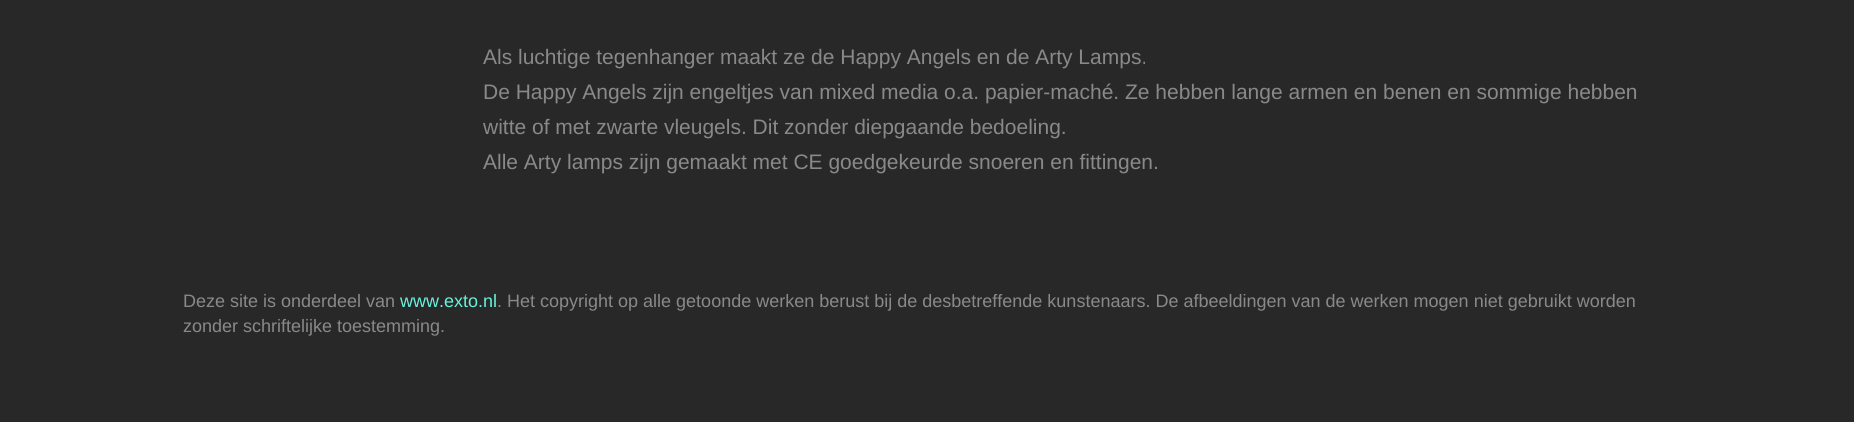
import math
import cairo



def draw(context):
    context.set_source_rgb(40 / 255, 40 / 255, 40 / 255)
    context.paint()
    context.select_font_face("Liberation Sans")
    context.set_font_size(21)
    context.set_source_rgb(137 / 255, 137 / 255, 139 / 255)
    context.move_to(483, 64)
    context.show_text("Als luchtige tegenhanger maakt ze de Happy Angels en de Arty Lamps.")
    context.move_to(483, 99)
    context.show_text("De Happy Angels zijn engeltjes van mixed media o.a. papier-maché. Ze hebben lange armen en benen en sommige hebben")
    context.move_to(483, 134)
    context.show_text("witte of met zwarte vleugels. Dit zonder diepgaande bedoeling.")
    context.move_to(483, 169)
    context.show_text("Alle Arty lamps zijn gemaakt met CE goedgekeurde snoeren en fittingen.")
    context.set_font_size(18)
    context.move_to(183, 307)
    context.show_text("Deze site is onderdeel van")
    context.set_source_rgb(104 / 255, 242 / 255, 220 / 255)
    context.move_to(400, 307)
    context.show_text("www.exto.nl")
    context.set_source_rgb(137 / 255, 137 / 255, 139 / 255)
    context.move_to(497, 307)
    context.show_text(". Het copyright op alle getoonde werken berust bij de desbetreffende kunstenaars. De afbeeldingen van de werken mogen niet gebruikt worden")
    context.move_to(183, 332)
    context.show_text("zonder schriftelijke toestemming.")


surface = cairo.ImageSurface(cairo.Format.RGB24, 1854, 422)
context = cairo.Context(surface)
options = cairo.FontOptions()
options.set_hint_metrics(cairo.HintMetrics.OFF)
options.set_hint_style(cairo.HintStyle.NONE)
context.set_font_options(options)
context.set_miter_limit(4)
draw(context)
surface.write_to_png("out.png")
